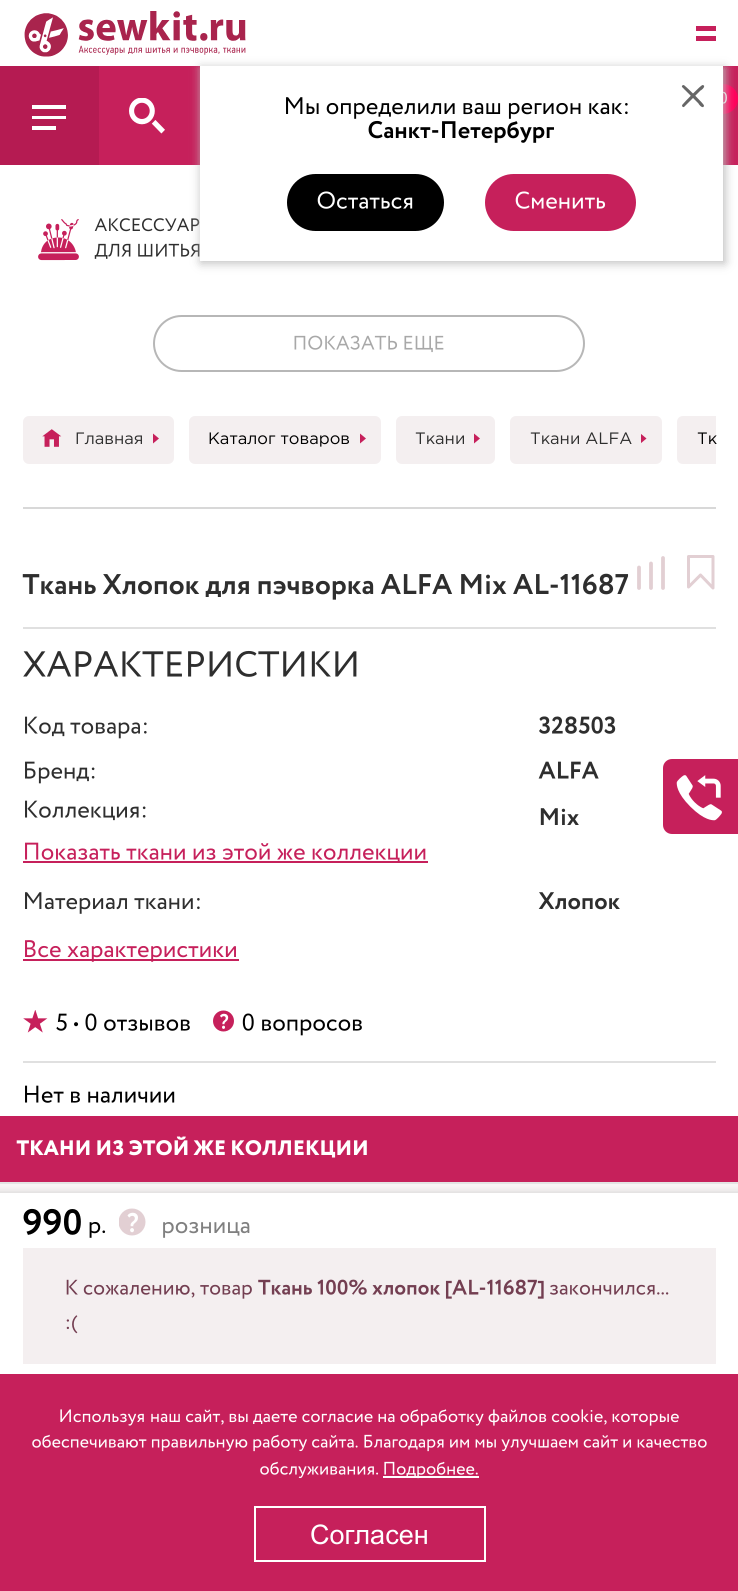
import math
import cairo



def rounded_rect(context, x, y, w, h, r):
    context.new_sub_path()
    for i, (u, v) in enumerate([(x + w - r, y + h - r), (x + r, y + h - r), (x + r, y + r), (x + w - r, y + r)]):
        context.arc(u, v, r, i * math.pi / 2, (i + 1) * math.pi / 2)
    context.close_path()


def draw_shadow(context, x, y, w, h, r, blur, alpha):
    context.push_group_with_content(cairo.Content.ALPHA)
    context.set_operator(cairo.Operator.SOURCE)
    for i in range(15, -16, -2):
        e = blur * i / 6
        if min(w, h) + 2 * e > 0:
            context.set_source_rgba(0, 0, 0, alpha * math.erfc((i - 1) / 8.5) / 2)
            rounded_rect(context, x - e, y - e, w + 2 * e, h + 2 * e, max(0, min(r + e + blur * .6, min(w, h) / 2 + e)))
            context.fill()
    context.mask(context.pop_group())


def draw_image(context, path, x, y, w, h):
    context.save()
    context.set_source_surface(cairo.ImageSurface.create_from_png(path), x, y)
    context.rectangle(x, y, w, h)
    context.fill()
    context.restore()


def draw(context):
    context.set_source_rgb(1, 1, 1)
    context.paint()
    draw_image(context, "images/1.png", 24, 11, 222, 46)
    context.set_source_rgb(198 / 255, 32 / 255, 91 / 255)
    context.rectangle(696, 26, 20, 5)
    context.fill()
    context.rectangle(696, 36, 20, 5)
    context.fill()
    context.rectangle(99, 66, 639, 99)
    context.fill()
    context.set_source_rgb(1, 0, 91 / 255)
    context.arc(723, 99, 15, 0, 2 * math.pi)
    context.fill()
    draw_image(context, "images/7.png", 723, 91, 4, 13)
    draw_image(context, "images/9.png", 94, 218, 106, 14)
    draw_image(context, "images/10.png", 94, 243, 106, 16)
    context.set_source_rgb(188 / 255, 188 / 255, 188 / 255)
    draw_shadow(context, 201, 68, 524, 195, 0, 5, 1)
    context.set_source_rgb(1, 1, 1)
    context.rectangle(200, 66, 523, 195)
    context.fill()
    draw_image(context, "images/2.png", 286, 97, 342, 22)
    draw_image(context, "images/3.png", 368, 120, 186, 23)
    context.set_source_rgb(102 / 255, 102 / 255, 102 / 255)
    context.new_path()
    context.move_to(684.5, 85.5)
    context.curve_to(687, 87.5, 704, 104, 704, 105.5)
    context.line_to(703.5, 107)
    context.curve_to(701.5, 108, 698.5, 104, 698.5, 103.5)
    context.line_to(682, 87)
    context.curve_to(681.5, 86, 682.5, 85, 683.5, 85)
    context.close_path()
    context.fill()
    context.new_path()
    context.move_to(682.5, 104.5)
    context.curve_to(684.5, 102, 701, 85, 702.5, 85)
    context.line_to(704, 85.5)
    context.curve_to(705, 87.5, 701, 90.5, 700.5, 90.5)
    context.line_to(684, 107)
    context.curve_to(683, 107.5, 682, 106.5, 682, 105.5)
    context.close_path()
    context.fill()
    context.set_source_rgb(0, 0, 0)
    rounded_rect(context, 287, 174, 157, 57, 28.5)
    context.fill()
    draw_image(context, "images/4.png", 317, 191, 96, 18)
    context.set_source_rgb(198 / 255, 32 / 255, 91 / 255)
    rounded_rect(context, 485, 174, 151, 57, 28.5)
    context.fill()
    draw_image(context, "images/5.png", 515, 191, 91, 18)
    context.set_source_rgb(181 / 255, 27 / 255, 82 / 255)
    context.rectangle(0, 66, 99, 99)
    context.fill()
    context.set_source_rgb(1, 1, 1)
    context.rectangle(32, 105, 34, 4)
    context.fill()
    context.rectangle(32, 116, 34, 3)
    context.fill()
    context.rectangle(32, 126, 24, 4)
    context.fill()
    draw_image(context, "images/6.png", 129, 98, 36, 36)
    draw_image(context, "images/8.png", 38, 219, 41, 42)
    rounded_rect(context, 154, 316, 430, 55, 27.5)
    context.set_source_rgb(183 / 255, 183 / 255, 183 / 255)
    context.stroke()
    draw_image(context, "images/11.png", 294, 335, 150, 18)
    context.set_source_rgb(244 / 255, 239 / 255, 240 / 255)
    rounded_rect(context, 23, 416, 151, 48, 6)
    context.fill()
    draw_image(context, "images/12.png", 42, 429, 20, 18)
    context.set_source_rgb(198 / 255, 32 / 255, 91 / 255)
    context.set_fill_rule(cairo.FillRule.EVEN_ODD)
    context.new_path()
    context.move_to(153, 443.5)
    context.line_to(159, 438.5)
    context.line_to(153, 433.5)
    context.close_path()
    context.fill()
    context.set_source_rgb(244 / 255, 239 / 255, 240 / 255)
    rounded_rect(context, 189, 416, 192, 48, 6)
    context.fill()
    context.set_source_rgb(198 / 255, 32 / 255, 91 / 255)
    context.new_path()
    context.move_to(360, 443.5)
    context.line_to(366, 438.5)
    context.line_to(360, 433.5)
    context.close_path()
    context.fill()
    context.set_source_rgb(244 / 255, 239 / 255, 240 / 255)
    rounded_rect(context, 396, 416, 99, 48, 6)
    context.fill()
    context.set_source_rgb(198 / 255, 32 / 255, 91 / 255)
    context.new_path()
    context.move_to(474, 443.5)
    context.line_to(480, 438.5)
    context.line_to(474, 433.5)
    context.close_path()
    context.fill()
    context.set_source_rgb(244 / 255, 239 / 255, 240 / 255)
    rounded_rect(context, 510, 416, 152, 48, 6)
    context.fill()
    context.save()
    context.set_fill_rule(cairo.FillRule.WINDING)
    context.rectangle(641, 434, 6, 10)
    context.clip()
    context.set_source_rgb(198 / 255, 32 / 255, 91 / 255)
    context.set_fill_rule(cairo.FillRule.EVEN_ODD)
    context.new_path()
    context.move_to(640.5, 443.5)
    context.line_to(646.5, 438.5)
    context.line_to(640.5, 433.5)
    context.close_path()
    context.fill()
    context.restore()
    context.new_path()
    context.move_to(683, 416)
    context.line_to(716, 416)
    context.line_to(716, 464)
    context.line_to(683, 464)
    context.curve_to(679.5, 464, 677, 461.5, 677, 458)
    context.line_to(677, 422)
    context.curve_to(677, 418.5, 679.5, 416, 683, 416)
    context.close_path()
    context.fill()
    context.set_source_rgb(216 / 255, 216 / 255, 216 / 255)
    context.rectangle(23, 507, 693, 2)
    context.fill()
    context.new_path()
    context.move_to(639, 588)
    context.line_to(639, 567.5)
    context.move_to(651, 588)
    context.line_to(651, 563.5)
    context.move_to(663, 588)
    context.line_to(663, 558)
    context.set_source_rgb(226 / 255, 207 / 255, 211 / 255)
    context.set_line_width(3.8)
    context.set_line_cap(cairo.LineCap.ROUND)
    context.set_line_join(cairo.LineJoin.ROUND)
    context.stroke()
    context.new_path()
    context.move_to(688.5, 556.5)
    context.line_to(713, 556.5)
    context.line_to(713, 588)
    context.line_to(700.5, 575)
    context.line_to(688.5, 587)
    context.close_path()
    context.set_line_width(3)
    context.set_line_cap(cairo.LineCap.BUTT)
    context.stroke()
    draw_image(context, "images/13.png", 25, 1085, 150, 18)
    context.set_source_rgb(198 / 255, 32 / 255, 91 / 255)
    context.rectangle(0, 1116, 738, 66)
    context.fill()
    context.set_source_rgb(227 / 255, 227 / 255, 227 / 255)
    context.rectangle(0, 1182, 738, 2)
    context.fill()
    context.set_source_rgb(249 / 255, 245 / 255, 246 / 255)
    context.rectangle(0, 1184, 738, 9)
    context.fill()
    context.set_source_rgb(204 / 255, 204 / 255, 204 / 255)
    draw_shadow(context, -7, 1193, 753, 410, 0, 4, 1)
    context.set_source_rgb(1, 1, 1)
    context.rectangle(0, 1193, 738, 181)
    context.fill()
    draw_image(context, "images/14.png", 23, 1208, 58, 27)
    draw_image(context, "images/15.png", 89, 1222, 17, 16)
    draw_image(context, "images/16.png", 119, 1208, 27, 28)
    draw_image(context, "images/17.png", 163, 1222, 87, 16)
    context.set_source_rgb(244 / 255, 239 / 255, 240 / 255)
    context.rectangle(23, 1248, 693, 116)
    context.fill()
    draw_image(context, "images/18.png", 66, 1279, 186, 20)
    draw_image(context, "images/19.png", 258, 1279, 286, 20)
    draw_image(context, "images/20.png", 550, 1284, 119, 11)
    draw_image(context, "images/21.png", 66, 1315, 12, 19)
    draw_image(context, "images/22.png", 22, 573, 607, 27)
    context.set_source_rgb(224 / 255, 224 / 255, 224 / 255)
    context.rectangle(23, 627, 693, 2)
    context.fill()
    context.rectangle(23, 1061, 693, 2)
    context.fill()
    draw_image(context, "images/23.png", 23, 650, 334, 27)
    draw_image(context, "images/24.png", 25, 716, 122, 23)
    draw_image(context, "images/25.png", 539, 716, 77, 18)
    draw_image(context, "images/26.png", 25, 761, 70, 23)
    draw_image(context, "images/27.png", 538, 761, 61, 18)
    draw_image(context, "images/28.png", 25, 800, 121, 21)
    draw_image(context, "images/29.png", 540, 808, 39, 17)
    draw_image(context, "images/30.png", 25, 842, 401, 19)
    context.set_source_rgb(198 / 255, 32 / 255, 91 / 255)
    context.rectangle(23, 861, 405, 2)
    context.fill()
    draw_image(context, "images/31.png", 25, 892, 175, 22)
    draw_image(context, "images/32.png", 538, 892, 82, 18)
    context.rectangle(23, 959, 216, 2)
    context.fill()
    draw_image(context, "images/33.png", 25, 940, 211, 22)
    draw_image(context, "images/34.png", 23, 1010, 25, 23)
    draw_image(context, "images/35.png", 56, 1013, 134, 18)
    draw_image(context, "images/36.png", 213, 1010, 21, 22)
    draw_image(context, "images/37.png", 242, 1013, 120, 23)
    draw_image(context, "images/38.png", 16, 1136, 351, 22)
    context.new_path()
    context.move_to(672, 759)
    context.line_to(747, 759)
    context.line_to(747, 834)
    context.line_to(672, 834)
    context.curve_to(667, 834, 663, 830, 663, 825)
    context.line_to(663, 768)
    context.curve_to(663, 763, 667, 759, 672, 759)
    context.close_path()
    context.fill()
    draw_image(context, "images/39.png", 676, 775, 46, 46)
    context.rectangle(0, 1374, 738, 217)
    context.fill()
    draw_image(context, "images/40.png", 60, 1409, 84, 17)
    draw_image(context, "images/41.png", 151, 1409, 528, 17)
    draw_image(context, "images/42.png", 32, 1434, 675, 18)
    draw_image(context, "images/43.png", 260, 1461, 119, 18)
    context.set_source_rgb(1, 1, 1)
    context.rectangle(383, 1476, 96, 2)
    context.fill()
    draw_image(context, "images/44.png", 384, 1461, 94, 18)
    context.rectangle(255, 1507, 230, 54)
    context.set_line_width(2)
    context.set_line_join(cairo.LineJoin.MITER)
    context.stroke()
    context.select_font_face("Gotham")
    context.set_font_size(16.5)
    context.set_source_rgb(46 / 255, 46 / 255, 46 / 255)
    context.move_to(75, 444)
    context.show_text("Главная")
    context.set_source_rgb(0, 0, 0)
    context.move_to(208, 444)
    context.show_text("Каталог товаров")
    context.set_source_rgb(46 / 255, 46 / 255, 46 / 255)
    context.move_to(415, 444)
    context.show_text("Ткани")
    context.move_to(530, 444)
    context.show_text("Ткани ALFA")
    context.set_source_rgb(0, 0, 0)
    context.move_to(697, 444)
    context.show_text("Тк")
    context.select_font_face("Arial")
    context.set_font_size(27)
    context.set_source_rgb(1, 1, 1)
    context.move_to(310, 1544)
    context.show_text("Согласен")


surface = cairo.ImageSurface(cairo.Format.RGB24, 738, 1591)
context = cairo.Context(surface)
options = cairo.FontOptions()
options.set_hint_metrics(cairo.HintMetrics.OFF)
options.set_hint_style(cairo.HintStyle.NONE)
context.set_font_options(options)
context.set_miter_limit(4)
draw(context)
surface.write_to_png("out.png")
